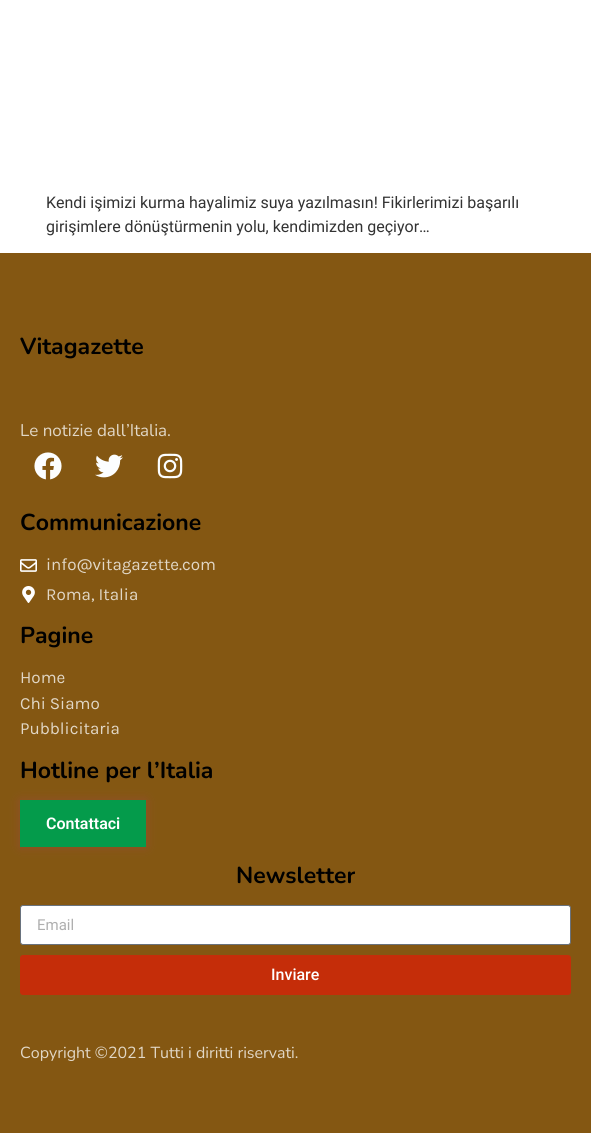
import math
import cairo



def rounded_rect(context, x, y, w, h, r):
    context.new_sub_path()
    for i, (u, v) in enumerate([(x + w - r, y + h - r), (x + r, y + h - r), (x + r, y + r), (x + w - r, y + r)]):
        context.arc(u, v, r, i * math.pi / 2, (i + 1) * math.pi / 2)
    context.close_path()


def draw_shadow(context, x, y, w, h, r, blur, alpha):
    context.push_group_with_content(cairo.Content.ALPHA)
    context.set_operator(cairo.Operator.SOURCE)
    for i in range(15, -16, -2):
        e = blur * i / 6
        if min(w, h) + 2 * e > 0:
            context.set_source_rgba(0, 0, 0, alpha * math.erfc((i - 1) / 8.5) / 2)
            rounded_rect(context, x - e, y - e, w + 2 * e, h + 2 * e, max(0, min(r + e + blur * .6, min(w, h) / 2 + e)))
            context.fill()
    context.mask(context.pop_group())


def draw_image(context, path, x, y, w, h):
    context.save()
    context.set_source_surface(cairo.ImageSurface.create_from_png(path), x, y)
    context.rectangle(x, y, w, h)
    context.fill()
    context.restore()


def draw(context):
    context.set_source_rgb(1, 1, 1)
    context.paint()
    context.set_source_rgb(132 / 255, 87 / 255, 18 / 255)
    context.rectangle(0, 253, 591, 880)
    context.fill()
    draw_image(context, "images/1.png", 34, 452, 28, 28)
    draw_image(context, "images/2.png", 95, 454, 28, 24)
    draw_image(context, "images/3.png", 157, 453, 26, 26)
    draw_image(context, "images/4.png", 20, 559, 17, 13)
    draw_image(context, "images/5.png", 22, 586, 13, 17)
    context.set_source_rgb(158 / 255, 69 / 255, 69 / 255)
    draw_shadow(context, 20, 800, 126, 47, 0, 5, 0.5)
    context.set_source_rgb(4 / 255, 155 / 255, 75 / 255)
    context.rectangle(20, 800, 126, 47)
    context.fill()
    context.set_source_rgb(1, 1, 1)
    rounded_rect(context, 20.5, 905.5, 550, 39, 2.5)
    context.fill_preserve()
    context.set_source_rgb(105 / 255, 114 / 255, 125 / 255)
    context.set_line_width(1)
    context.stroke()
    context.set_source_rgb(197 / 255, 45 / 255, 9 / 255)
    rounded_rect(context, 20, 955, 551, 40, 3)
    context.fill()
    context.select_font_face("Roboto")
    context.set_font_size(16)
    context.set_source_rgb(51 / 255, 51 / 255, 51 / 255)
    context.move_to(46, 208)
    context.show_text("Kendi işimizi kurma hayalimiz suya yazılmasın! Fikirlerimizi başarılı")
    context.move_to(46, 232)
    context.show_text("girişimlere dönüştürmenin yolu, kendimizden geçiyor…")
    context.select_font_face("Nunito", cairo.FontSlant.NORMAL, cairo.FontWeight.BOLD)
    context.set_font_size(23)
    context.set_source_rgb(0, 0, 0)
    context.move_to(20, 354)
    context.show_text("Vitagazette")
    context.select_font_face("Nunito")
    context.set_font_size(17)
    context.set_source_rgb(225 / 255, 215 / 255, 198 / 255)
    context.move_to(20, 436)
    context.show_text("Le notizie dall’Italia.")
    context.select_font_face("Nunito", cairo.FontSlant.NORMAL, cairo.FontWeight.BOLD)
    context.set_font_size(23)
    context.set_source_rgb(0, 0, 0)
    context.move_to(20, 530)
    context.show_text("Communicazione")
    context.select_font_face("Karla")
    context.set_font_size(17)
    context.set_source_rgb(225 / 255, 215 / 255, 198 / 255)
    context.move_to(46, 570)
    context.show_text("info@vitagazette.com")
    context.move_to(46, 600)
    context.show_text("Roma, Italia")
    context.select_font_face("Nunito", cairo.FontSlant.NORMAL, cairo.FontWeight.BOLD)
    context.set_font_size(23)
    context.set_source_rgb(0, 0, 0)
    context.move_to(20, 643)
    context.show_text("Pagine")
    context.select_font_face("Karla")
    context.set_font_size(17)
    context.set_source_rgb(225 / 255, 215 / 255, 198 / 255)
    context.move_to(20, 683)
    context.show_text("Home")
    context.move_to(20, 709)
    context.show_text("Chi Siamo")
    context.move_to(20, 734)
    context.show_text("Pubblicitaria")
    context.select_font_face("Nunito", cairo.FontSlant.NORMAL, cairo.FontWeight.BOLD)
    context.set_font_size(23)
    context.set_source_rgb(0, 0, 0)
    context.move_to(20, 778)
    context.show_text("Hotline per l’Italia")
    context.select_font_face("Roboto SemiBold")
    context.set_font_size(16)
    context.set_source_rgb(1, 1, 1)
    context.move_to(46, 829)
    context.show_text("Contattaci")
    context.select_font_face("Nunito", cairo.FontSlant.NORMAL, cairo.FontWeight.BOLD)
    context.set_font_size(23)
    context.set_source_rgb(0, 0, 0)
    context.move_to(236, 883)
    context.show_text("Newsletter")
    context.select_font_face("Roboto")
    context.set_font_size(15)
    context.set_source_rgb(175 / 255, 175 / 255, 175 / 255)
    context.move_to(37, 930)
    context.show_text("Email")
    context.select_font_face("Roboto Medium")
    context.set_font_size(16)
    context.set_source_rgb(1, 1, 1)
    context.move_to(271, 980)
    context.show_text("Inviare")
    context.select_font_face("Nunito")
    context.set_source_rgb(225 / 255, 215 / 255, 198 / 255)
    context.move_to(20, 1058)
    context.show_text("Copyright ©2021 Tutti i diritti riservati.")


surface = cairo.ImageSurface(cairo.Format.RGB24, 591, 1133)
context = cairo.Context(surface)
options = cairo.FontOptions()
options.set_hint_metrics(cairo.HintMetrics.OFF)
options.set_hint_style(cairo.HintStyle.NONE)
context.set_font_options(options)
context.set_miter_limit(4)
draw(context)
surface.write_to_png("out.png")
